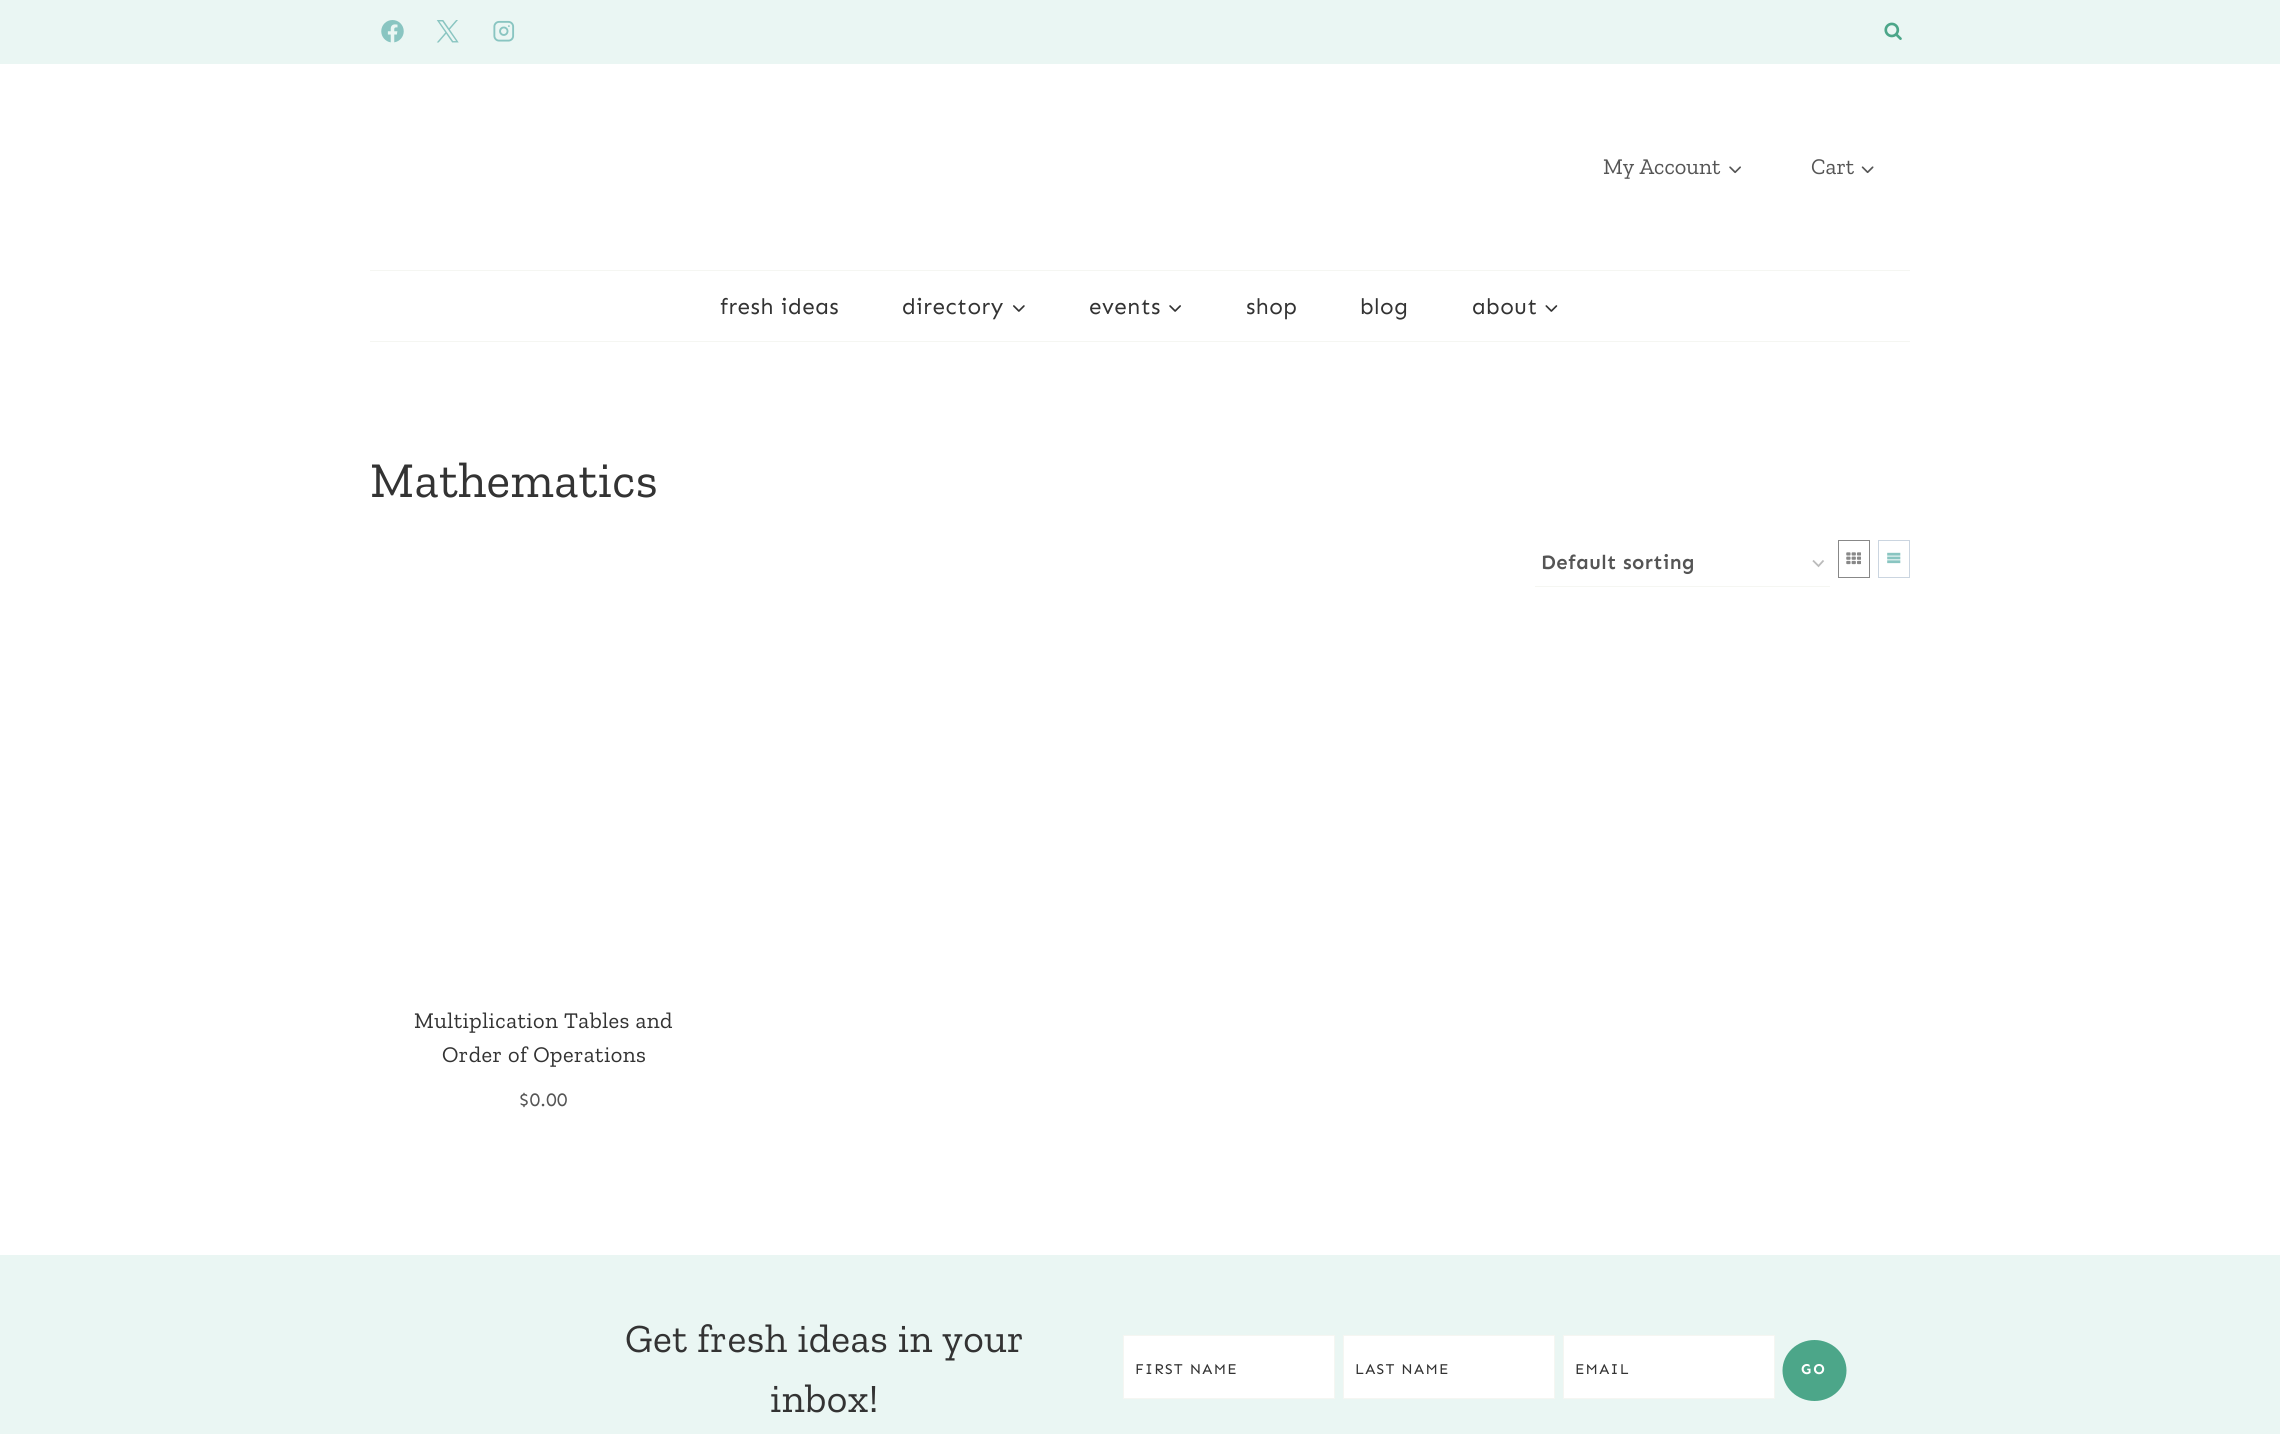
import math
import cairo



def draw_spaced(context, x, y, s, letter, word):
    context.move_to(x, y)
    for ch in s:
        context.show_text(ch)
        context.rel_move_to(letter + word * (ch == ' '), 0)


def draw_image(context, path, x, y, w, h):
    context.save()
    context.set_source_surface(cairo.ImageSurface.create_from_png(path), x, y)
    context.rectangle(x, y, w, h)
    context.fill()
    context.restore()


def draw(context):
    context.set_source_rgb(1, 1, 1)
    context.paint()
    context.set_source_rgb(234 / 255, 246 / 255, 243 / 255)
    context.rectangle(0, 0, 2280, 64)
    context.fill()
    draw_image(context, "images/1.png", 381, 20, 23, 23)
    draw_image(context, "images/2.png", 436, 20, 23, 23)
    draw_image(context, "images/3.png", 493, 20, 22, 22)
    draw_image(context, "images/4.png", 1884, 22, 18, 18)
    draw_image(context, "images/5.png", 1729, 166, 12, 8)
    draw_image(context, "images/6.png", 1861, 166, 13, 8)
    context.set_source_rgb(245 / 255, 246 / 255, 242 / 255)
    context.rectangle(370, 270, 1540, 1)
    context.fill()
    context.rectangle(370, 341, 1540, 1)
    context.fill()
    draw_image(context, "images/7.png", 1013, 305, 12, 7)
    draw_image(context, "images/8.png", 1169, 305, 12, 7)
    draw_image(context, "images/9.png", 1545, 305, 13, 7)
    context.new_path()
    context.move_to(1813, 560.5)
    context.line_to(1818.5, 566)
    context.line_to(1823.5, 560.5)
    context.set_source_rgb(187 / 255, 187 / 255, 187 / 255)
    context.set_line_width(1.8)
    context.stroke()
    context.set_source_rgb(245 / 255, 246 / 255, 242 / 255)
    context.rectangle(1535, 586, 295, 1)
    context.fill()
    context.rectangle(1838.5, 540.5, 31, 37)
    context.set_source_rgb(136 / 255, 136 / 255, 136 / 255)
    context.set_line_width(1)
    context.stroke()
    draw_image(context, "images/10.png", 1846, 552, 15, 13)
    context.rectangle(1878.5, 540.5, 31, 37)
    context.set_source_rgb(203 / 255, 213 / 255, 224 / 255)
    context.stroke()
    draw_image(context, "images/11.png", 1887, 552, 14, 12)
    context.set_source_rgb(234 / 255, 246 / 255, 243 / 255)
    context.rectangle(0, 1255, 2280, 179)
    context.fill()
    context.set_source_rgb(1, 1, 1)
    context.rectangle(1123.5, 1335.5, 211, 63)
    context.fill_preserve()
    context.set_source_rgb(245 / 255, 246 / 255, 242 / 255)
    context.stroke()
    context.set_source_rgb(1, 1, 1)
    context.rectangle(1343.5, 1335.5, 211, 63)
    context.fill_preserve()
    context.set_source_rgb(245 / 255, 246 / 255, 242 / 255)
    context.stroke()
    context.set_source_rgb(1, 1, 1)
    context.rectangle(1563.5, 1335.5, 211, 63)
    context.fill_preserve()
    context.set_source_rgb(245 / 255, 246 / 255, 242 / 255)
    context.stroke()
    context.set_source_rgb(76 / 255, 166 / 255, 137 / 255)
    context.new_path()
    context.move_to(1814.5, 1340)
    context.curve_to(1832, 1340, 1846.5, 1353.5, 1846.5, 1370.5)
    context.curve_to(1846.5, 1387.5, 1832, 1401, 1814.5, 1401)
    context.curve_to(1797, 1401, 1782.5, 1387.5, 1782.5, 1370.5)
    context.curve_to(1782.5, 1353.5, 1797, 1340, 1814.5, 1340)
    context.close_path()
    context.fill()
    context.select_font_face("Zilla Slab")
    context.set_font_size(22.5)
    context.set_source_rgb(85 / 255, 85 / 255, 85 / 255)
    context.move_to(1603, 174)
    context.show_text("My Account")
    context.move_to(1811, 174)
    context.show_text("Cart")
    context.select_font_face("Sen")
    context.set_source_rgb(51 / 255, 51 / 255, 51 / 255)
    draw_spaced(context, 720, 314, "fresh ideas", 0.45, 0)
    draw_spaced(context, 902, 314, "directory", 0.45, 0)
    draw_spaced(context, 1089, 314, "events", 0.45, 0)
    draw_spaced(context, 1246, 314, "shop", 0.45, 0)
    draw_spaced(context, 1360, 314, "blog", 0.45, 0)
    draw_spaced(context, 1472, 314, "about", 0.45, 0)
    context.select_font_face("Zilla Slab")
    context.set_font_size(50)
    draw_spaced(context, 370, 497, "Mathematics", 0.45, 0)
    context.select_font_face("Sen SemiBold")
    context.set_font_size(20.25)
    context.set_source_rgb(85 / 255, 85 / 255, 85 / 255)
    draw_spaced(context, 1541, 569, "Default sorting", 0.4, 0)
    context.select_font_face("Zilla Slab")
    context.set_font_size(22.5)
    context.set_source_rgb(51 / 255, 51 / 255, 51 / 255)
    draw_spaced(context, 414, 1028, "Multiplication Tables and", 0.45, 0)
    draw_spaced(context, 442, 1062, "Order of Operations", 0.45, 0)
    context.select_font_face("Sen")
    context.set_font_size(19)
    context.set_source_rgb(85 / 255, 85 / 255, 85 / 255)
    draw_spaced(context, 519, 1106, "$0.00", 0.45, 0)
    context.select_font_face("Zilla Slab")
    context.set_font_size(40)
    context.set_source_rgb(51 / 255, 51 / 255, 51 / 255)
    draw_spaced(context, 625, 1352, "Get fresh ideas in your", 0.45, 0)
    draw_spaced(context, 770, 1412, "inbox!", 0.45, 0)
    context.select_font_face("Sen")
    context.set_font_size(15)
    draw_spaced(context, 1135, 1374, "FIRST NAME", 1.25, 0)
    draw_spaced(context, 1355, 1374, "LAST NAME", 1.25, 0)
    draw_spaced(context, 1575, 1374, "EMAIL", 1.25, 0)
    context.select_font_face("Sen", cairo.FontSlant.NORMAL, cairo.FontWeight.BOLD)
    context.set_source_rgb(1, 1, 1)
    draw_spaced(context, 1801, 1374, "GO", 2, 0)


surface = cairo.ImageSurface(cairo.Format.RGB24, 2280, 1434)
context = cairo.Context(surface)
options = cairo.FontOptions()
options.set_hint_metrics(cairo.HintMetrics.OFF)
options.set_hint_style(cairo.HintStyle.NONE)
context.set_font_options(options)
context.set_miter_limit(4)
draw(context)
surface.write_to_png("out.png")
